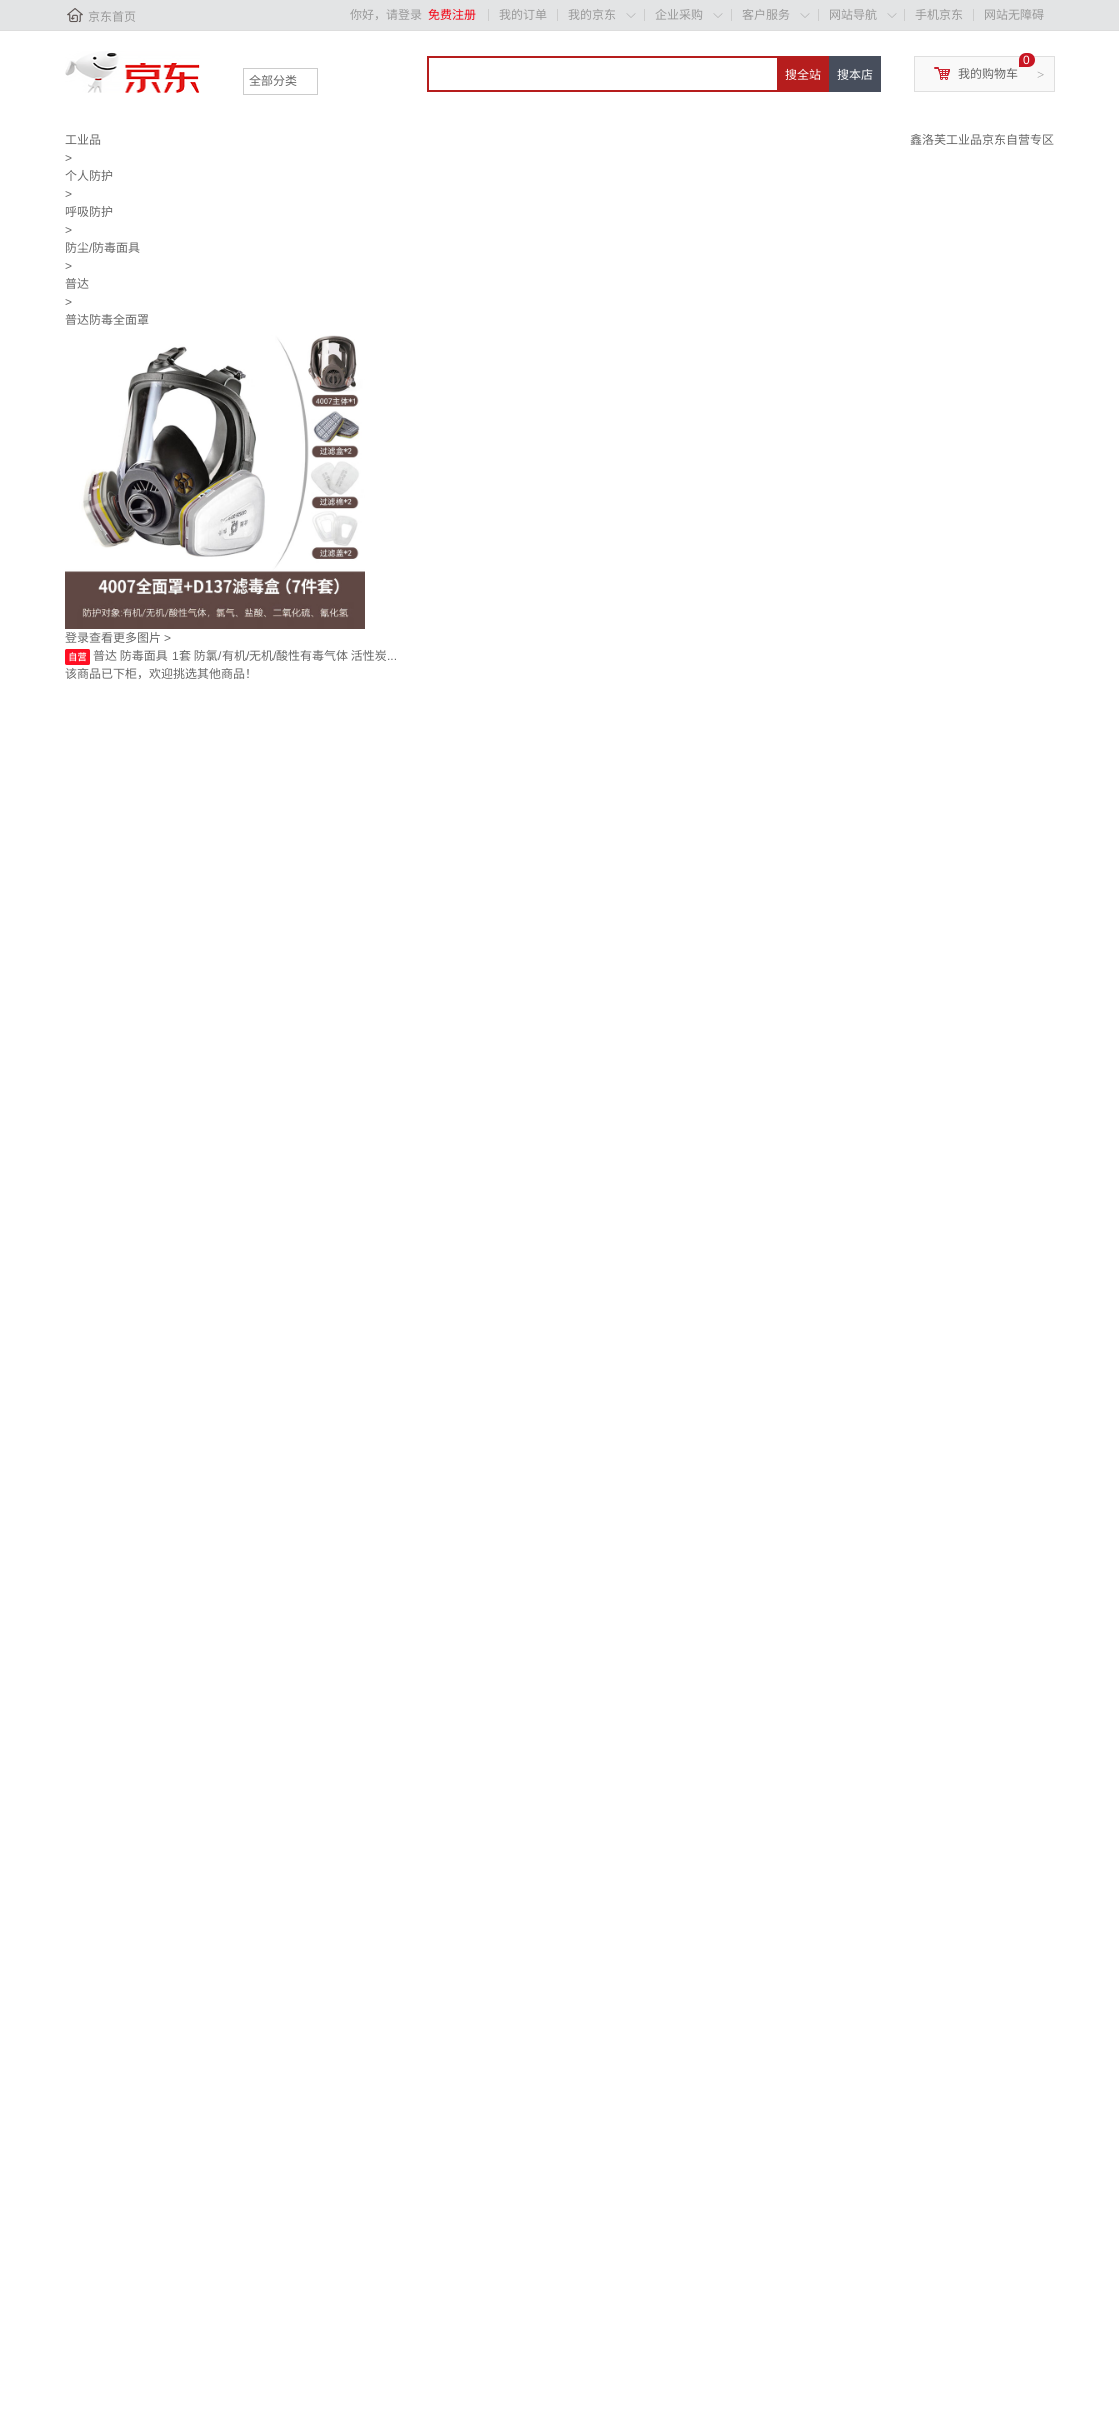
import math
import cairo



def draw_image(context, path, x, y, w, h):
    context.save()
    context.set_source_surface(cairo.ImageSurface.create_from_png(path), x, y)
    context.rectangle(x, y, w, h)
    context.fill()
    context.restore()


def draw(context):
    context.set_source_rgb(1, 1, 1)
    context.paint()
    context.set_source_rgb(227 / 255, 228 / 255, 229 / 255)
    context.rectangle(0, 0, 1119, 30)
    context.fill()
    context.set_source_rgb(221 / 255, 221 / 255, 221 / 255)
    context.rectangle(0, 30, 1119, 1)
    context.fill()
    draw_image(context, "images/1.png", 67, 8, 16, 15)
    context.set_source_rgb(204 / 255, 204 / 255, 204 / 255)
    context.rectangle(488, 9, 1, 12)
    context.fill()
    context.rectangle(557, 9, 1, 12)
    context.fill()
    draw_image(context, "images/2.png", 626, 13, 10, 5)
    context.rectangle(644, 9, 1, 12)
    context.fill()
    draw_image(context, "images/2.png", 713, 13, 10, 5)
    context.rectangle(731, 9, 1, 12)
    context.fill()
    draw_image(context, "images/2.png", 800, 13, 10, 5)
    context.rectangle(818, 9, 1, 12)
    context.fill()
    draw_image(context, "images/2.png", 887, 13, 10, 5)
    context.rectangle(904, 9, 1, 12)
    context.fill()
    context.rectangle(973, 9, 1, 12)
    context.fill()
    draw_image(context, "images/3.png", 65, 51, 135, 42)
    context.rectangle(243.5, 68.5, 74, 26)
    context.set_line_width(1)
    context.stroke()
    context.set_source_rgb(182 / 255, 29 / 255, 29 / 255)
    context.rectangle(427, 56, 350, 2)
    context.fill()
    context.rectangle(427, 90, 350, 2)
    context.fill()
    context.rectangle(427, 56, 2, 36)
    context.fill()
    context.rectangle(777, 56, 52, 36)
    context.fill()
    context.set_source_rgb(71 / 255, 78 / 255, 92 / 255)
    context.rectangle(829, 56, 52, 36)
    context.fill()
    context.set_source_rgb(249 / 255, 249 / 255, 249 / 255)
    context.rectangle(914.5, 56.5, 140, 35)
    context.fill_preserve()
    context.set_source_rgb(223 / 255, 223 / 255, 223 / 255)
    context.stroke()
    context.set_source_rgb(200 / 255, 22 / 255, 35 / 255)
    context.new_path()
    context.move_to(1026, 53)
    context.line_to(1028, 53)
    context.curve_to(1032, 53, 1035, 56, 1035, 60)
    context.curve_to(1035, 64, 1032, 67, 1028, 67)
    context.line_to(1019, 67)
    context.line_to(1019, 60)
    context.curve_to(1019, 56, 1022, 53, 1026, 53)
    context.close_path()
    context.fill()
    draw_image(context, "images/4.png", 934, 67, 16, 13)
    draw_image(context, "images/5.png", 65, 335, 300, 294)
    draw_image(context, "images/6.png", 65, 649, 25, 16)
    context.select_font_face("Noto Sans CJK SC")
    context.set_font_size(12)
    context.set_source_rgb(153 / 255, 153 / 255, 153 / 255)
    context.move_to(88, 21)
    context.show_text("京东首页")
    context.move_to(350, 19)
    context.show_text("你好，请登录")
    context.set_source_rgb(243 / 255, 2 / 255, 19 / 255)
    context.move_to(428, 19)
    context.show_text("免费注册")
    context.set_source_rgb(153 / 255, 153 / 255, 153 / 255)
    context.move_to(499, 19)
    context.show_text("我的订单")
    context.move_to(568, 19)
    context.show_text("我的京东")
    context.move_to(655, 19)
    context.show_text("企业采购")
    context.move_to(742, 19)
    context.show_text("客户服务")
    context.move_to(829, 19)
    context.show_text("网站导航")
    context.move_to(915, 19)
    context.show_text("手机京东")
    context.move_to(984, 19)
    context.show_text("网站无障碍")
    context.set_source_rgb(102 / 255, 102 / 255, 102 / 255)
    context.move_to(249, 85)
    context.show_text("全部分类")
    context.set_source_rgb(1, 1, 1)
    context.move_to(785, 79)
    context.show_text("搜全站")
    context.move_to(837, 79)
    context.show_text("搜本店")
    context.select_font_face("Liberation Sans")
    context.move_to(1023, 64)
    context.show_text("0")
    context.select_font_face("Noto Sans CJK SC")
    context.set_source_rgb(102 / 255, 102 / 255, 102 / 255)
    context.move_to(958, 78)
    context.show_text("我的购物车")
    context.select_font_face("Liberation Serif")
    context.set_font_size(13)
    context.set_source_rgb(153 / 255, 153 / 255, 153 / 255)
    context.move_to(1037, 79)
    context.show_text(">")
    context.select_font_face("Noto Sans CJK SC")
    context.set_font_size(12)
    context.set_source_rgb(102 / 255, 102 / 255, 102 / 255)
    context.move_to(65, 144)
    context.show_text("工业品")
    context.select_font_face("Liberation Sans")
    context.move_to(65, 162)
    context.show_text(">")
    context.select_font_face("Noto Sans CJK SC")
    context.move_to(65, 180)
    context.show_text("个人防护")
    context.select_font_face("Liberation Sans")
    context.move_to(65, 198)
    context.show_text(">")
    context.select_font_face("Noto Sans CJK SC")
    context.move_to(65, 216)
    context.show_text("呼吸防护")
    context.select_font_face("Liberation Sans")
    context.move_to(65, 234)
    context.show_text(">")
    context.select_font_face("Noto Sans CJK SC")
    context.move_to(65, 252)
    context.show_text("防尘")
    context.select_font_face("Liberation Sans")
    context.move_to(89, 252)
    context.show_text("/")
    context.select_font_face("Noto Sans CJK SC")
    context.move_to(92, 252)
    context.show_text("防毒面具")
    context.select_font_face("Liberation Sans")
    context.move_to(65, 270)
    context.show_text(">")
    context.select_font_face("Noto Sans CJK SC")
    context.move_to(65, 288)
    context.show_text("普达")
    context.select_font_face("Liberation Sans")
    context.move_to(65, 306)
    context.show_text(">")
    context.select_font_face("Noto Sans CJK SC")
    context.move_to(65, 324)
    context.show_text("普达防毒全面罩")
    context.move_to(910, 144)
    context.show_text("鑫洛芙工业品京东自营专区")
    context.move_to(65, 642)
    context.show_text("登录查看更多图片")
    context.select_font_face("Liberation Sans")
    context.move_to(164, 642)
    context.show_text(">")
    context.select_font_face("Noto Sans CJK SC")
    context.move_to(93, 660)
    context.show_text("普达 防毒面具")
    context.select_font_face("Liberation Sans")
    context.move_to(172, 660)
    context.show_text("1")
    context.select_font_face("Noto Sans CJK SC")
    context.move_to(179, 660)
    context.show_text("套 防氯")
    context.select_font_face("Liberation Sans")
    context.move_to(218, 660)
    context.show_text("/")
    context.select_font_face("Noto Sans CJK SC")
    context.move_to(222, 660)
    context.show_text("有机")
    context.select_font_face("Liberation Sans")
    context.move_to(246, 660)
    context.show_text("/")
    context.select_font_face("Noto Sans CJK SC")
    context.move_to(249, 660)
    context.show_text("无机")
    context.select_font_face("Liberation Sans")
    context.move_to(273, 660)
    context.show_text("/")
    context.select_font_face("Noto Sans CJK SC")
    context.move_to(276, 660)
    context.show_text("酸性有毒气体 活性炭")
    context.select_font_face("Liberation Sans")
    context.move_to(387, 660)
    context.show_text("...")
    context.select_font_face("Noto Sans CJK SC")
    context.move_to(65, 678)
    context.show_text("该商品已下柜，欢迎挑选其他商品！")


surface = cairo.ImageSurface(cairo.Format.RGB24, 1119, 2429)
context = cairo.Context(surface)
options = cairo.FontOptions()
options.set_hint_metrics(cairo.HintMetrics.OFF)
options.set_hint_style(cairo.HintStyle.NONE)
context.set_font_options(options)
context.set_miter_limit(4)
draw(context)
surface.write_to_png("out.png")
